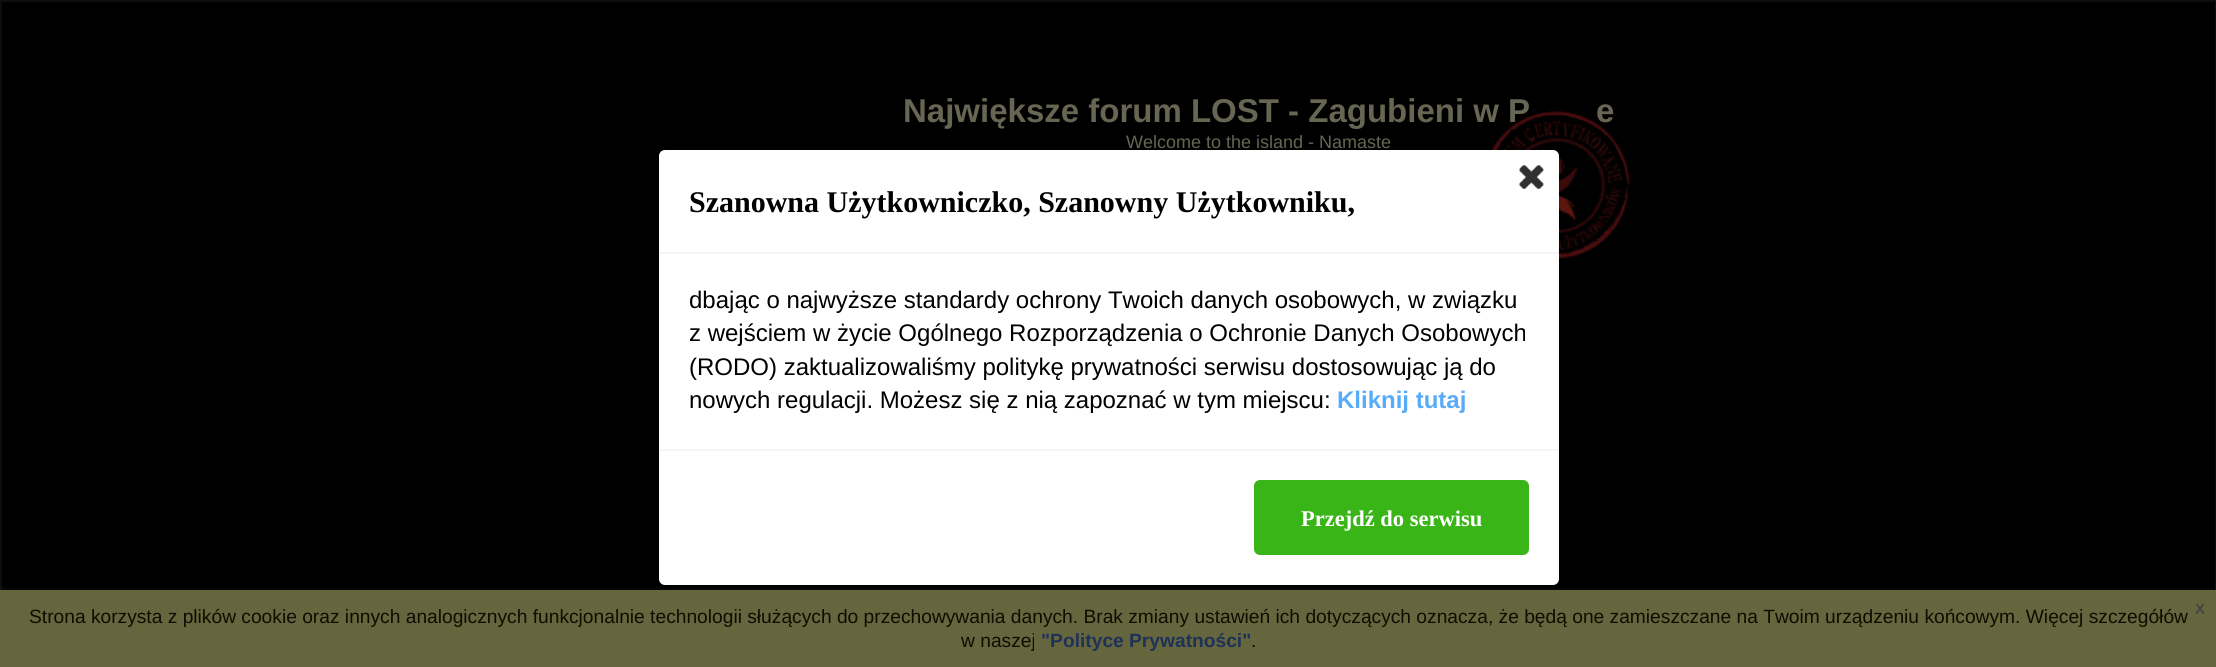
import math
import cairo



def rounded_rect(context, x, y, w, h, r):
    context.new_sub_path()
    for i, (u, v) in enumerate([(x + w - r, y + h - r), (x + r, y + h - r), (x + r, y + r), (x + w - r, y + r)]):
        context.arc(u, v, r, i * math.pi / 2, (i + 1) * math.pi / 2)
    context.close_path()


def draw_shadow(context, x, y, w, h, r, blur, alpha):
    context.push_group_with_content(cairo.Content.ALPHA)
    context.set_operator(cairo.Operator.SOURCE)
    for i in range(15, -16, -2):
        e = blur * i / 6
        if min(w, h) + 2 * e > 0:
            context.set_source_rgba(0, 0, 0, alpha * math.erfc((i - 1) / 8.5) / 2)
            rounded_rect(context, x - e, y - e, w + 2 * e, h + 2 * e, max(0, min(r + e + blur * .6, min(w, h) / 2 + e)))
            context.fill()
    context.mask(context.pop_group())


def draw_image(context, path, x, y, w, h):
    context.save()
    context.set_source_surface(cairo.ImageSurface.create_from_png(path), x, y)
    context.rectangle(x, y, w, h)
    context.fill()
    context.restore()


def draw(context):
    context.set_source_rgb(0, 0, 0)
    context.paint()
    context.rectangle(1, 1, 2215, 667)
    context.set_source_rgb(13 / 255, 13 / 255, 13 / 255)
    context.stroke()
    context.set_source_rgb(75 / 255, 75 / 255, 75 / 255)
    draw_shadow(context, 0, 593, 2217, 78, 0, 3, 1)
    context.set_source_rgb(101 / 255, 101 / 255, 62 / 255)
    context.rectangle(0, 590, 2216, 77)
    context.fill()
    context.select_font_face("Liberation Sans", cairo.FontSlant.NORMAL, cairo.FontWeight.BOLD)
    context.set_font_size(33)
    context.set_source_rgb(102 / 255, 102 / 255, 82 / 255)
    context.move_to(903, 122)
    context.show_text("Największe forum LOST - Zagubieni w P")
    context.move_to(1596, 122)
    context.show_text("e")
    context.select_font_face("Liberation Sans")
    context.set_font_size(18)
    context.move_to(1126, 148)
    context.show_text("Welcome to the island - Namaste")
    draw_image(context, "images/2.png", 1491, 110, 139, 149)
    context.set_source_rgb(1, 1, 1)
    rounded_rect(context, 659, 150, 900, 435, 6)
    context.fill()
    draw_image(context, "images/1.png", 1519, 165, 25, 24)
    context.select_font_face("Liberation Serif", cairo.FontSlant.NORMAL, cairo.FontWeight.BOLD)
    context.set_font_size(30)
    context.set_source_rgb(0, 0, 0)
    context.move_to(689, 212)
    context.show_text("Szanowna Użytkowniczko, Szanowny Użytkowniku,")
    context.set_source_rgb(245 / 255, 245 / 255, 245 / 255)
    context.rectangle(659, 252, 900, 2)
    context.fill()
    context.set_source_rgb(57 / 255, 181 / 255, 24 / 255)
    rounded_rect(context, 1255, 481, 273, 73, 5)
    context.fill_preserve()
    context.stroke()
    context.set_font_size(22.5)
    context.set_source_rgb(1, 1, 1)
    context.move_to(1301, 526)
    context.show_text("Przejdź do serwisu")
    context.select_font_face("Liberation Sans", cairo.FontSlant.NORMAL, cairo.FontWeight.BOLD)
    context.set_font_size(24)
    context.set_source_rgb(88 / 255, 171 / 255, 249 / 255)
    context.move_to(1337, 408)
    context.show_text("Kliknij tutaj")
    context.select_font_face("Liberation Sans")
    context.set_source_rgb(0, 0, 0)
    context.move_to(689, 408)
    context.show_text("nowych regulacji. Możesz się z nią zapoznać w tym miejscu:")
    context.move_to(689, 375)
    context.show_text("(RODO) zaktualizowaliśmy politykę prywatności serwisu dostosowując ją do")
    context.move_to(689, 341)
    context.show_text("z wejściem w życie Ogólnego Rozporządzenia o Ochronie Danych Osobowych")
    context.move_to(689, 308)
    context.show_text("dbając o najwyższe standardy ochrony Twoich danych osobowych, w związku")
    context.set_source_rgb(245 / 255, 245 / 255, 245 / 255)
    context.rectangle(659, 449, 900, 2)
    context.fill()
    context.set_font_size(19.2)
    context.set_source_rgb(14 / 255, 13 / 255, 0)
    context.move_to(29, 623)
    context.show_text("Strona korzysta z plików cookie oraz innych analogicznych funkcjonalnie technologii służących do przechowywania danych. Brak zmiany ustawień ich dotyczących oznacza, że będą one zamieszczane na Twoim urządzeniu końcowym. Więcej szczegółów")
    context.move_to(961, 647)
    context.show_text("w naszej")
    context.select_font_face("Liberation Sans", cairo.FontSlant.NORMAL, cairo.FontWeight.BOLD)
    context.set_source_rgb(30 / 255, 50 / 255, 88 / 255)
    context.move_to(1041, 647)
    context.show_text("\"Polityce Prywatności\"")
    context.select_font_face("Liberation Sans")
    context.set_source_rgb(14 / 255, 13 / 255, 0)
    context.move_to(1251, 647)
    context.show_text(".")
    context.select_font_face("Liberation Sans", cairo.FontSlant.NORMAL, cairo.FontWeight.BOLD)
    context.set_font_size(15)
    context.set_source_rgb(68 / 255, 68 / 255, 68 / 255)
    context.move_to(2195, 614)
    context.show_text("X")


surface = cairo.ImageSurface(cairo.Format.RGB24, 2216, 667)
context = cairo.Context(surface)
options = cairo.FontOptions()
options.set_hint_metrics(cairo.HintMetrics.OFF)
options.set_hint_style(cairo.HintStyle.NONE)
context.set_font_options(options)
context.set_miter_limit(4)
draw(context)
surface.write_to_png("out.png")
